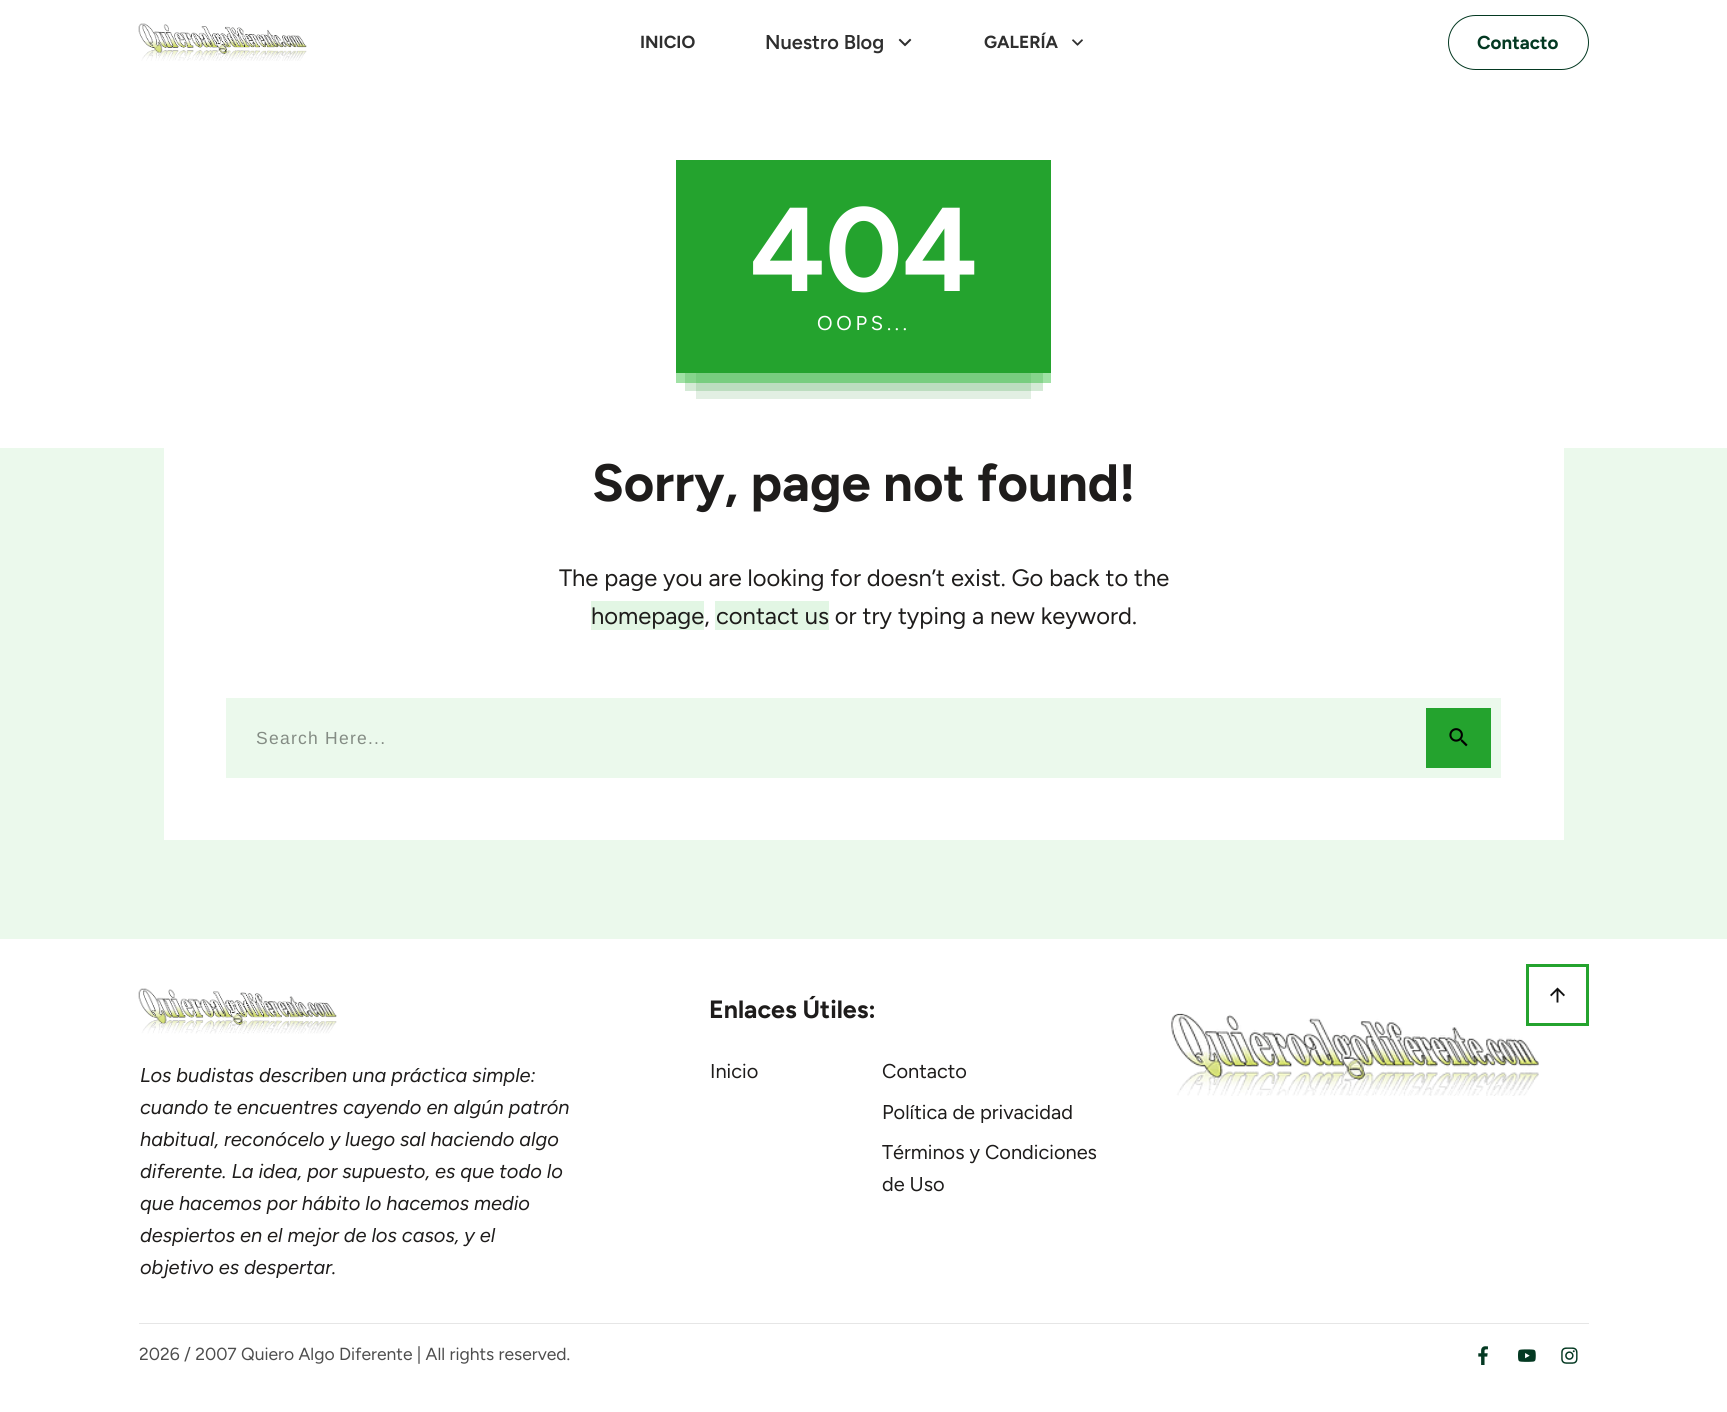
import math
import cairo



def draw_spaced(context, x, y, s, letter, word):
    context.move_to(x, y)
    for ch in s:
        context.show_text(ch)
        context.rel_move_to(letter + word * (ch == ' '), 0)


def rounded_rect(context, x, y, w, h, r):
    context.new_sub_path()
    for i, (u, v) in enumerate([(x + w - r, y + h - r), (x + r, y + h - r), (x + r, y + r), (x + w - r, y + r)]):
        context.arc(u, v, r, i * math.pi / 2, (i + 1) * math.pi / 2)
    context.close_path()


def draw_image(context, path, x, y, w, h):
    context.save()
    context.set_source_surface(cairo.ImageSurface.create_from_png(path), x, y)
    context.rectangle(x, y, w, h)
    context.fill()
    context.restore()


def draw(context):
    context.set_source_rgb(235 / 255, 249 / 255, 236 / 255)
    context.paint()
    context.set_source_rgb(1, 1, 1)
    context.rectangle(0, 0, 1727, 448)
    context.fill()
    draw_image(context, "images/1.png", 138, 23, 169, 38)
    draw_image(context, "images/2.png", 898, 38, 14, 9)
    draw_image(context, "images/3.png", 1072, 39, 11, 7)
    rounded_rect(context, 1448.5, 15.5, 140, 54, 27)
    context.set_source_rgb(4 / 255, 57 / 255, 34 / 255)
    context.set_line_width(1)
    context.stroke()
    context.set_source_rgb(212 / 255, 234 / 255, 214 / 255)
    context.rectangle(685, 373, 358, 18)
    context.fill()
    context.set_source_rgb(226 / 255, 239 / 255, 227 / 255)
    context.rectangle(696, 391, 335, 8)
    context.fill()
    context.set_source_rgb(188 / 255, 221 / 255, 191 / 255)
    context.rectangle(696, 373, 335, 18)
    context.fill()
    context.set_source_rgba(18 / 255, 181 / 255, 32 / 255, 0.4)
    context.new_path()
    context.move_to(676, 170)
    context.line_to(676, 383)
    context.line_to(1051, 383)
    context.line_to(1051, 372)
    context.line_to(676, 372)
    context.close_path()
    context.fill()
    context.set_source_rgb(36 / 255, 163 / 255, 46 / 255)
    context.rectangle(676, 160, 375, 213)
    context.fill()
    context.set_source_rgb(1, 1, 1)
    context.rectangle(164, 448, 1400, 392)
    context.fill()
    context.set_source_rgb(226 / 255, 246 / 255, 228 / 255)
    context.rectangle(591, 601, 113, 29)
    context.fill()
    context.rectangle(715, 601, 114, 29)
    context.fill()
    context.set_source_rgb(235 / 255, 249 / 255, 236 / 255)
    context.rectangle(226, 698, 1275, 80)
    context.fill()
    context.set_source_rgb(36 / 255, 163 / 255, 46 / 255)
    context.rectangle(1426, 708, 65, 60)
    context.fill()
    draw_image(context, "images/4.png", 1449, 728, 19, 19)
    context.set_source_rgb(1, 1, 1)
    context.rectangle(0, 939, 1727, 473)
    context.fill()
    draw_image(context, "images/5.png", 1171, 1013, 368, 83)
    draw_image(context, "images/6.png", 138, 988, 199, 46)
    context.rectangle(1527.5, 965.5, 60, 59)
    context.set_source_rgb(36 / 255, 163 / 255, 46 / 255)
    context.set_line_width(3)
    context.stroke()
    draw_image(context, "images/7.png", 1550, 987, 15, 16)
    context.set_source_rgb(230 / 255, 230 / 255, 230 / 255)
    context.rectangle(139, 1323, 1450, 1)
    context.fill()
    draw_image(context, "images/8.png", 1478, 1346, 10, 19)
    draw_image(context, "images/9.png", 1518, 1349, 18, 13)
    draw_image(context, "images/10.png", 1561, 1347, 17, 17)
    context.select_font_face("Figtree", cairo.FontSlant.NORMAL, cairo.FontWeight.BOLD)
    context.set_font_size(17.5)
    context.set_source_rgb(47 / 255, 47 / 255, 47 / 255)
    context.move_to(640, 48)
    context.show_text("INICIO")
    context.select_font_face("Figtree SemiBold")
    context.set_font_size(20)
    context.move_to(765, 49)
    context.show_text("Nuestro Blog")
    context.select_font_face("Figtree", cairo.FontSlant.NORMAL, cairo.FontWeight.BOLD)
    context.set_font_size(17.5)
    context.move_to(984, 48)
    context.show_text("GALERÍA")
    context.set_font_size(18.75)
    context.set_source_rgb(4 / 255, 57 / 255, 34 / 255)
    context.move_to(1477, 49)
    context.show_text("Contacto")
    context.set_font_size(119)
    context.set_source_rgb(1, 1, 1)
    context.move_to(750, 291)
    context.show_text("404")
    context.select_font_face("Figtree")
    context.set_font_size(20)
    draw_spaced(context, 817, 330, "OOPS...", 3.75, 0)
    context.select_font_face("Figtree", cairo.FontSlant.NORMAL, cairo.FontWeight.BOLD)
    context.set_font_size(52.5)
    context.set_source_rgb(30 / 255, 28 / 255, 27 / 255)
    context.move_to(592, 501)
    context.show_text("Sorry, page not found!")
    context.select_font_face("Figtree")
    context.set_font_size(23.75)
    context.move_to(559, 586)
    context.show_text("The page you are looking for doesn’t exist. Go back to the")
    context.move_to(591, 624)
    context.show_text("homepage,")
    context.move_to(716, 624)
    context.show_text("contact us or try typing a new keyword.")
    context.select_font_face("Liberation Sans")
    context.set_font_size(17.5)
    context.set_source_rgb(132 / 255, 140 / 255, 132 / 255)
    draw_spaced(context, 256, 744, "Search Here...", 1.25, 0)
    context.select_font_face("Figtree", cairo.FontSlant.NORMAL, cairo.FontWeight.BOLD)
    context.set_font_size(25)
    context.set_source_rgb(30 / 255, 28 / 255, 27 / 255)
    context.move_to(709, 1018)
    context.show_text("Enlaces Útiles:")
    context.select_font_face("Figtree")
    context.set_font_size(20)
    context.move_to(710, 1078)
    context.show_text("Inicio")
    context.move_to(882, 1078)
    context.show_text("Contacto")
    context.move_to(882, 1119)
    context.show_text("Política de privacidad")
    context.move_to(882, 1159)
    context.show_text("Términos y Condiciones")
    context.move_to(882, 1191)
    context.show_text("de Uso")
    context.select_font_face("Figtree", cairo.FontSlant.ITALIC)
    context.move_to(140, 1082)
    context.show_text("Los budistas describen una práctica simple:")
    context.move_to(140, 1114)
    context.show_text("cuando te encuentres cayendo en algún patrón")
    context.move_to(140, 1146)
    context.show_text("habitual, reconócelo y luego sal haciendo algo")
    context.move_to(140, 1178)
    context.show_text("diferente. La idea, por supuesto, es que todo lo")
    context.move_to(140, 1210)
    context.show_text("que hacemos por hábito lo hacemos medio")
    context.move_to(140, 1242)
    context.show_text("despiertos en el mejor de los casos, y el")
    context.move_to(140, 1274)
    context.show_text("objetivo es despertar.")
    context.select_font_face("Figtree")
    context.set_font_size(17.5)
    context.set_source_rgb(77 / 255, 77 / 255, 77 / 255)
    context.move_to(139, 1360)
    context.show_text("2026 / 2007 Quiero Algo Diferente | All rights reserved.")


surface = cairo.ImageSurface(cairo.Format.RGB24, 1727, 1412)
context = cairo.Context(surface)
options = cairo.FontOptions()
options.set_hint_metrics(cairo.HintMetrics.OFF)
options.set_hint_style(cairo.HintStyle.NONE)
context.set_font_options(options)
context.set_miter_limit(4)
draw(context)
surface.write_to_png("out.png")
